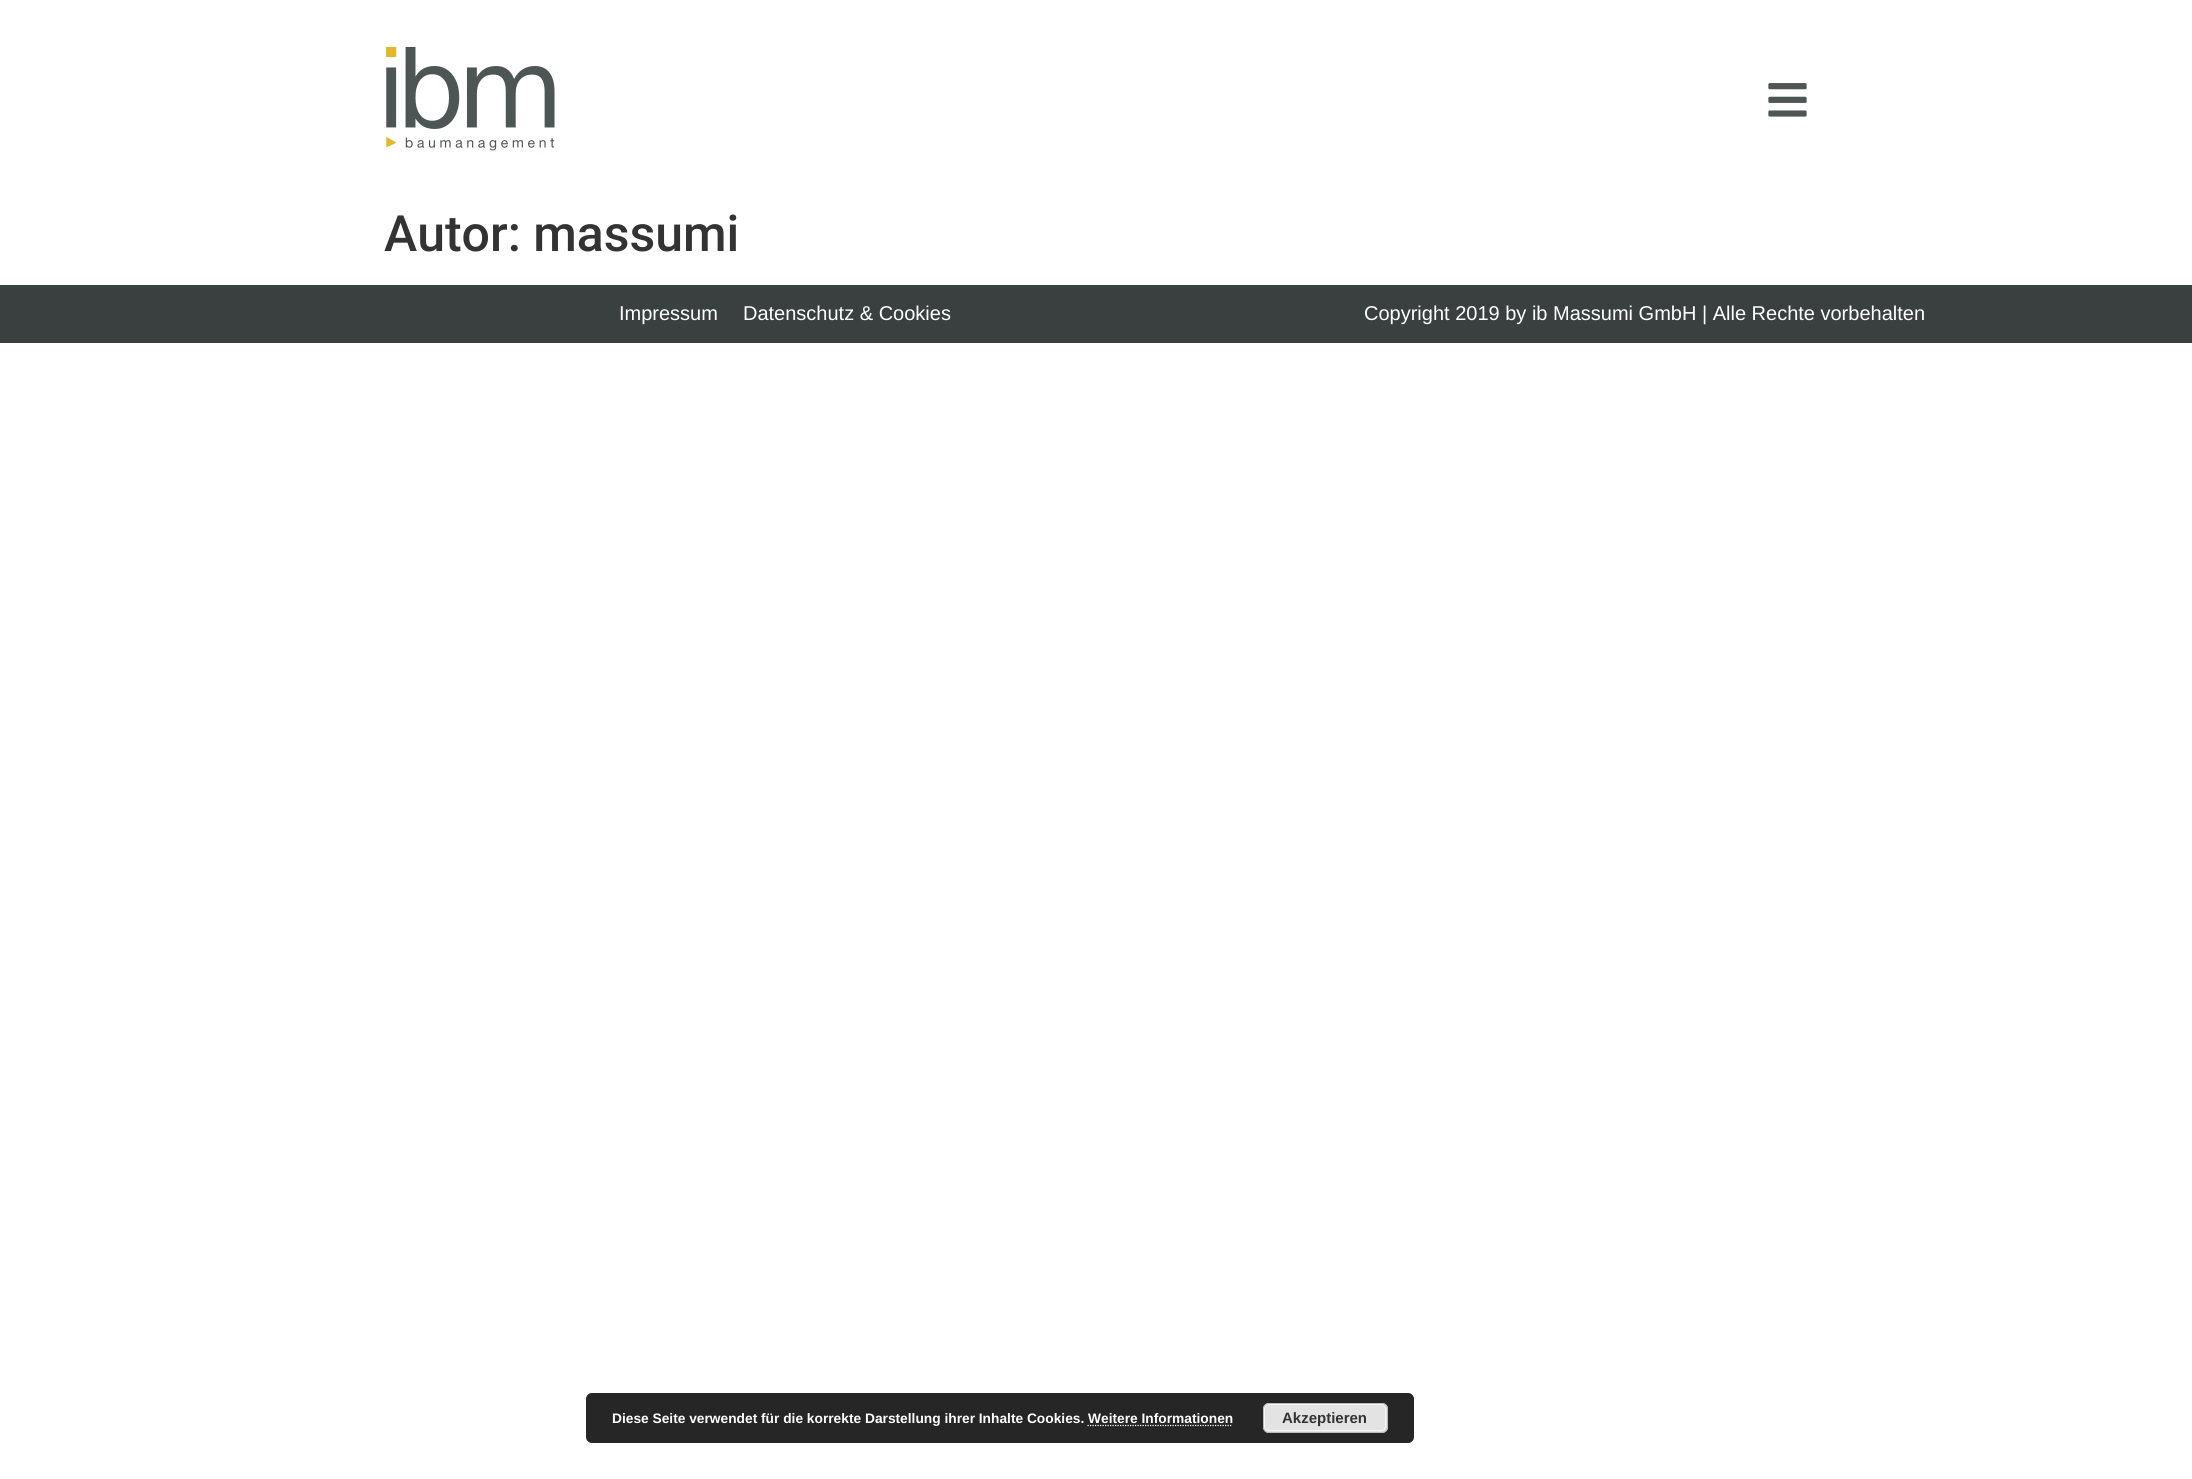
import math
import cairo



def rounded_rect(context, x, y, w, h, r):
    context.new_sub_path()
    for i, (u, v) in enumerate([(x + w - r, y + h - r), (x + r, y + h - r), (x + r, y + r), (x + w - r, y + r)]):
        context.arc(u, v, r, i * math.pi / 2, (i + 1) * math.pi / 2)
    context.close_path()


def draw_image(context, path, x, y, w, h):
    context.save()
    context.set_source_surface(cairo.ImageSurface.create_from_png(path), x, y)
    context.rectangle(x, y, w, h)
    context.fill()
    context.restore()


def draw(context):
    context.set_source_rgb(1, 1, 1)
    context.paint()
    draw_image(context, "images/1.png", 386, 47, 169, 104)
    draw_image(context, "images/2.png", 1768, 83, 39, 34)
    context.set_source_rgb(58 / 255, 64 / 255, 64 / 255)
    context.rectangle(0, 285, 2192, 58)
    context.fill()
    context.set_source_rgb(38 / 255, 38 / 255, 38 / 255)
    rounded_rect(context, 586, 1393, 828, 50, 6)
    context.fill()
    context.set_source_rgb(227 / 255, 227 / 255, 227 / 255)
    rounded_rect(context, 1263, 1403, 125, 30, 6)
    context.fill()
    rounded_rect(context, 1264.5, 1404.5, 121, 26, 4.5)
    context.set_source_rgb(246 / 255, 246 / 255, 246 / 255)
    context.set_line_width(1)
    context.stroke()
    rounded_rect(context, 1263.5, 1403.5, 124, 29, 5.5)
    context.set_source_rgb(187 / 255, 187 / 255, 187 / 255)
    context.stroke()
    context.new_path()
    context.move_to(1087.5, 1425.5)
    context.line_to(1232.5, 1425.5)
    context.set_source_rgb(1, 1, 1)
    context.set_line_width(1.2)
    context.set_dash([1.25, 1.25])
    context.stroke()
    context.select_font_face("Roboto Medium")
    context.set_font_size(50)
    context.set_source_rgb(51 / 255, 51 / 255, 51 / 255)
    context.move_to(384, 251)
    context.show_text("Autor: massumi")
    context.select_font_face("Liberation Sans")
    context.set_font_size(20)
    context.set_source_rgb(1, 1, 1)
    context.move_to(619, 320)
    context.show_text("Impressum")
    context.move_to(743, 320)
    context.show_text("Datenschutz & Cookies")
    context.move_to(1364, 320)
    context.show_text("Copyright 2019 by ib Massumi GmbH | Alle Rechte vorbehalten")
    context.select_font_face("Liberation Sans", cairo.FontSlant.NORMAL, cairo.FontWeight.BOLD)
    context.set_font_size(13.75)
    context.move_to(612, 1423)
    context.show_text("Diese Seite verwendet für die korrekte Darstellung ihrer Inhalte Cookies. Weitere Informationen")
    context.set_font_size(15)
    context.set_source_rgb(51 / 255, 51 / 255, 51 / 255)
    context.move_to(1282, 1423)
    context.show_text("Akzeptieren")


surface = cairo.ImageSurface(cairo.Format.RGB24, 2192, 1479)
context = cairo.Context(surface)
options = cairo.FontOptions()
options.set_hint_metrics(cairo.HintMetrics.OFF)
options.set_hint_style(cairo.HintStyle.NONE)
context.set_font_options(options)
context.set_miter_limit(4)
draw(context)
surface.write_to_png("out.png")
